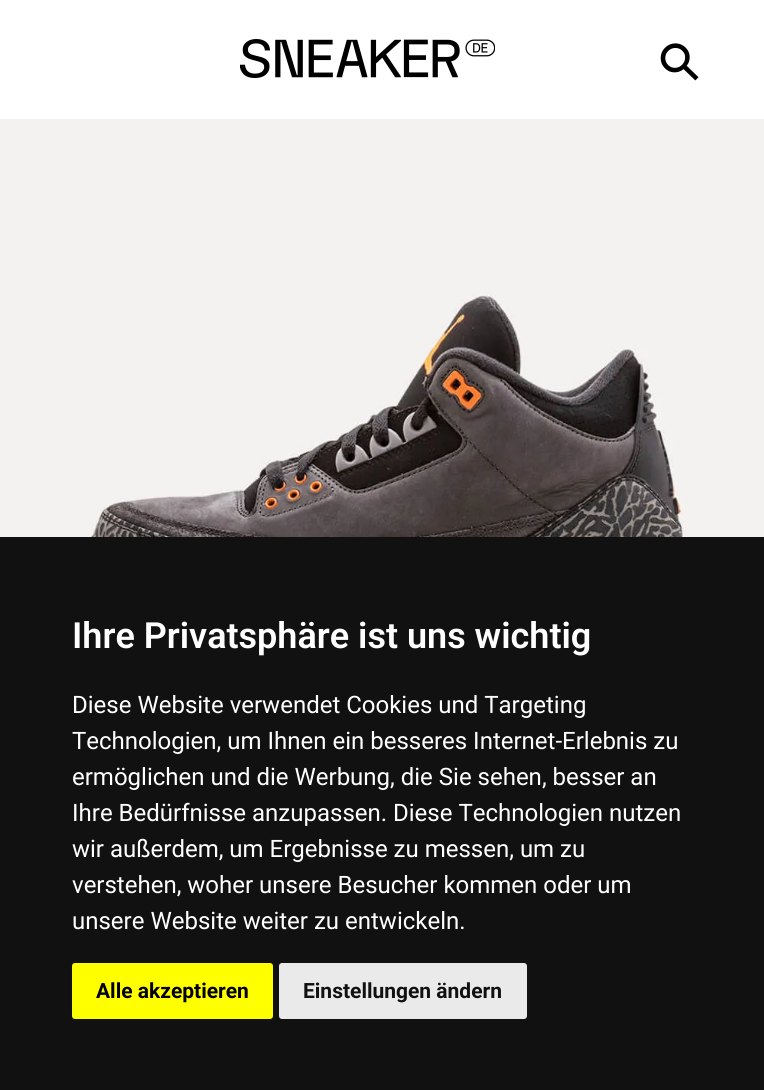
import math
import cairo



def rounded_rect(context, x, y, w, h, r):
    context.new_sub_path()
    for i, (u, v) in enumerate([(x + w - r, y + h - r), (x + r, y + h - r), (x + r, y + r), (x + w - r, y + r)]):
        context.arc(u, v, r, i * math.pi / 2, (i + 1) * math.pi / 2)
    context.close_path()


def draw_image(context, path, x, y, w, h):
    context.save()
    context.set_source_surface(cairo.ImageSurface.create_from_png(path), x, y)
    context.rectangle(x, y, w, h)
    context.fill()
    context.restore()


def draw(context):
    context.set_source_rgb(1, 1, 1)
    context.paint()
    draw_image(context, "images/1.png", 240, 39, 255, 39)
    draw_image(context, "images/2.png", 0, 119, 764, 418)
    context.set_source_rgb(17 / 255, 17 / 255, 17 / 255)
    context.rectangle(0, 537, 764, 553)
    context.fill()
    context.set_source_rgb(1, 1, 0)
    rounded_rect(context, 72, 963, 201, 56, 3)
    context.fill()
    context.set_source_rgb(234 / 255, 234 / 255, 234 / 255)
    rounded_rect(context, 279, 963, 248, 56, 3)
    context.fill()
    context.select_font_face("DejaVu Sans")
    context.set_font_size(52)
    context.set_source_rgb(0, 0, 0)
    context.save()
    context.translate(679, 88)
    context.rotate(-46 * math.pi / 180)
    context.move_to(0, 0)
    context.show_text("⚲")
    context.restore()
    context.select_font_face("Roboto SemiBold")
    context.set_font_size(36)
    context.set_source_rgb(1, 1, 1)
    context.move_to(72, 648)
    context.show_text("Ihre Privatsphäre ist uns wichtig")
    context.select_font_face("Roboto")
    context.set_font_size(24)
    context.move_to(72, 713)
    context.show_text("Diese Website verwendet Cookies und Targeting")
    context.move_to(72, 749)
    context.show_text("Technologien, um Ihnen ein besseres Internet-Erlebnis zu")
    context.move_to(72, 785)
    context.show_text("ermöglichen und die Werbung, die Sie sehen, besser an")
    context.move_to(72, 821)
    context.show_text("Ihre Bedürfnisse anzupassen. Diese Technologien nutzen")
    context.move_to(72, 857)
    context.show_text("wir außerdem, um Ergebnisse zu messen, um zu")
    context.move_to(72, 893)
    context.show_text("verstehen, woher unsere Besucher kommen oder um")
    context.move_to(72, 929)
    context.show_text("unsere Website weiter zu entwickeln.")
    context.select_font_face("Roboto", cairo.FontSlant.NORMAL, cairo.FontWeight.BOLD)
    context.set_font_size(21)
    context.set_source_rgb(0, 0, 0)
    context.move_to(96, 998)
    context.show_text("Alle akzeptieren")
    context.set_source_rgb(17 / 255, 17 / 255, 17 / 255)
    context.move_to(303, 998)
    context.show_text("Einstellungen ändern")


surface = cairo.ImageSurface(cairo.Format.RGB24, 764, 1090)
context = cairo.Context(surface)
options = cairo.FontOptions()
options.set_hint_metrics(cairo.HintMetrics.OFF)
options.set_hint_style(cairo.HintStyle.NONE)
context.set_font_options(options)
context.set_miter_limit(4)
draw(context)
surface.write_to_png("out.png")
